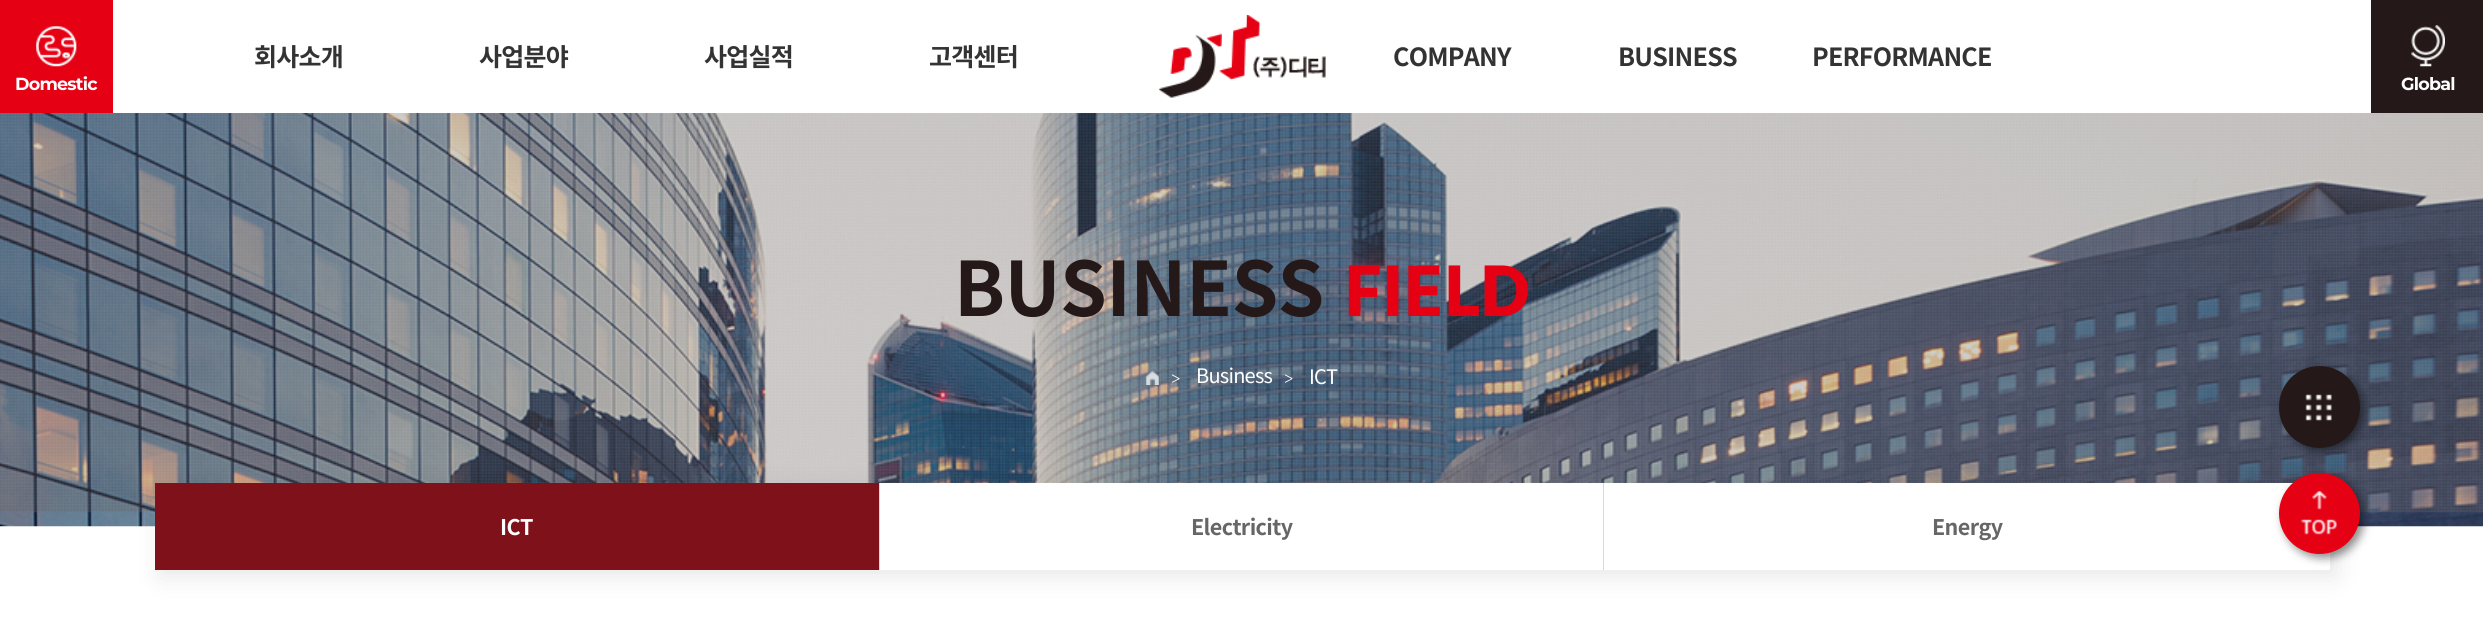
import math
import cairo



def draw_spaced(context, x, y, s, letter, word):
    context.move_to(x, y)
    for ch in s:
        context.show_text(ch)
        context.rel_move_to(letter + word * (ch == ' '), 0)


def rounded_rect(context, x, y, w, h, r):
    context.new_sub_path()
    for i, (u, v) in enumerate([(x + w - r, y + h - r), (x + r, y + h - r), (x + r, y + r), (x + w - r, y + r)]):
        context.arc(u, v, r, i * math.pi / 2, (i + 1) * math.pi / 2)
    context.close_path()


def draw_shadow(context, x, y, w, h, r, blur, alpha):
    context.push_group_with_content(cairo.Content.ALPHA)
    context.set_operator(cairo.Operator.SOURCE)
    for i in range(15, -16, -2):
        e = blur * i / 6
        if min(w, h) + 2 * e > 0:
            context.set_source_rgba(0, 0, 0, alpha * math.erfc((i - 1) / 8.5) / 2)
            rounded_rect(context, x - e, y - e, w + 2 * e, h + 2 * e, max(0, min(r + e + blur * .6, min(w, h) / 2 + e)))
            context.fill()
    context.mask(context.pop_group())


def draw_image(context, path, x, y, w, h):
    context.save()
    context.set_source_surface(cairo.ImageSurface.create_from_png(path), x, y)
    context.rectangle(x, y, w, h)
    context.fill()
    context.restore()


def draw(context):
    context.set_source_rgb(1, 1, 1)
    context.paint()
    draw_image(context, "images/1.png", 1159, 15, 167, 83)
    context.set_source_rgb(229 / 255, 0, 20 / 255)
    context.rectangle(0, 0, 113, 113)
    context.fill()
    draw_image(context, "images/2.png", 36, 26, 41, 41)
    context.set_source_rgb(36 / 255, 25 / 255, 24 / 255)
    context.rectangle(2371, 0, 112, 113)
    context.fill()
    draw_image(context, "images/3.png", 2411, 25, 34, 42)
    draw_image(context, "images/4.png", 0, 113, 2483, 414)
    draw_image(context, "images/5.png", 1146, 371, 13, 14)
    context.set_source_rgb(0, 0, 0)
    draw_shadow(context, 161, 489, 2175, 87, 0, 12.5, 0.1)
    context.set_source_rgb(1, 1, 1)
    context.rectangle(880, 483, 1450, 87)
    context.fill()
    context.set_source_rgb(216 / 255, 218 / 255, 214 / 255)
    context.rectangle(879, 483, 1, 87)
    context.fill()
    context.set_source_rgb(127 / 255, 17 / 255, 27 / 255)
    context.rectangle(155, 483, 724, 87)
    context.fill()
    context.set_source_rgb(216 / 255, 218 / 255, 214 / 255)
    context.rectangle(1603, 483, 1, 87)
    context.fill()
    context.set_source_rgb(0, 0, 0)
    draw_shadow(context, 2283, 370, 81, 81, 40.5, 4.5, 0.45)
    context.set_source_rgb(36 / 255, 25 / 255, 24 / 255)
    rounded_rect(context, 2279, 366, 81, 82, 40.5)
    context.fill()
    draw_image(context, "images/6.png", 2305, 394, 27, 27)
    context.set_source_rgb(0, 0, 0)
    draw_shadow(context, 2283, 476, 81, 82, 40.5, 4.5, 0.45)
    context.set_source_rgb(229 / 255, 0, 20 / 255)
    context.arc(2319.5, 513.5, 40.5, 0, 2 * math.pi)
    context.fill()
    draw_image(context, "images/7.png", 2300, 491, 37, 44)
    context.select_font_face("Noto Sans KR", cairo.FontSlant.NORMAL, cairo.FontWeight.BOLD)
    context.set_font_size(25)
    context.set_source_rgb(51 / 255, 51 / 255, 51 / 255)
    draw_spaced(context, 254, 66, "회사소개", -0.75, 0)
    draw_spaced(context, 479, 66, "사업분야", -0.75, 0)
    draw_spaced(context, 704, 66, "사업실적", -0.75, 0)
    draw_spaced(context, 929, 66, "고객센터", -0.75, 0)
    draw_spaced(context, 1393, 66, "COMPANY", -0.75, 0)
    draw_spaced(context, 1618, 66, "BUSINESS", -0.75, 0)
    draw_spaced(context, 1812, 66, "PERFORMANCE", -0.75, 0)
    context.select_font_face("Montserrat", cairo.FontSlant.NORMAL, cairo.FontWeight.BOLD)
    context.set_font_size(17.5)
    context.set_source_rgb(1, 1, 1)
    draw_spaced(context, 15, 90, "Domestic", -0.75, 0)
    draw_spaced(context, 2401, 90, "Global", -0.75, 0)
    context.select_font_face("Noto Sans KR", cairo.FontSlant.NORMAL, cairo.FontWeight.BOLD)
    context.set_font_size(75)
    context.set_source_rgb(36 / 255, 25 / 255, 24 / 255)
    draw_spaced(context, 954, 316, "BUSINESS", -0.6, 0)
    context.select_font_face("Hind", cairo.FontSlant.NORMAL, cairo.FontWeight.BOLD)
    context.set_source_rgb(229 / 255, 0, 20 / 255)
    draw_spaced(context, 1344, 316, "FIELD", -0.6, 0)
    context.select_font_face("Dotum")
    context.set_font_size(15)
    context.set_source_rgb(1, 1, 1)
    draw_spaced(context, 1171, 384, ">", -0.75, 0)
    context.select_font_face("Noto Sans KR")
    context.set_font_size(20)
    draw_spaced(context, 1196, 383, "Business", -0.75, 0)
    context.select_font_face("Dotum")
    context.set_font_size(15)
    draw_spaced(context, 1284, 384, ">", -0.75, 0)
    context.select_font_face("Noto Sans KR")
    context.set_font_size(20)
    draw_spaced(context, 1309, 384, "ICT", -0.75, 0)
    context.select_font_face("Noto Sans KR", cairo.FontSlant.NORMAL, cairo.FontWeight.BOLD)
    context.set_font_size(21.5)
    draw_spaced(context, 500, 535, "ICT", -0.6, 0)
    context.set_source_rgb(102 / 255, 102 / 255, 102 / 255)
    draw_spaced(context, 1191, 535, "Electricity", -0.6, 0)
    draw_spaced(context, 1932, 535, "Energy", -0.6, 0)


surface = cairo.ImageSurface(cairo.Format.RGB24, 2483, 628)
context = cairo.Context(surface)
options = cairo.FontOptions()
options.set_hint_metrics(cairo.HintMetrics.OFF)
options.set_hint_style(cairo.HintStyle.NONE)
context.set_font_options(options)
context.set_miter_limit(4)
draw(context)
surface.write_to_png("out.png")
